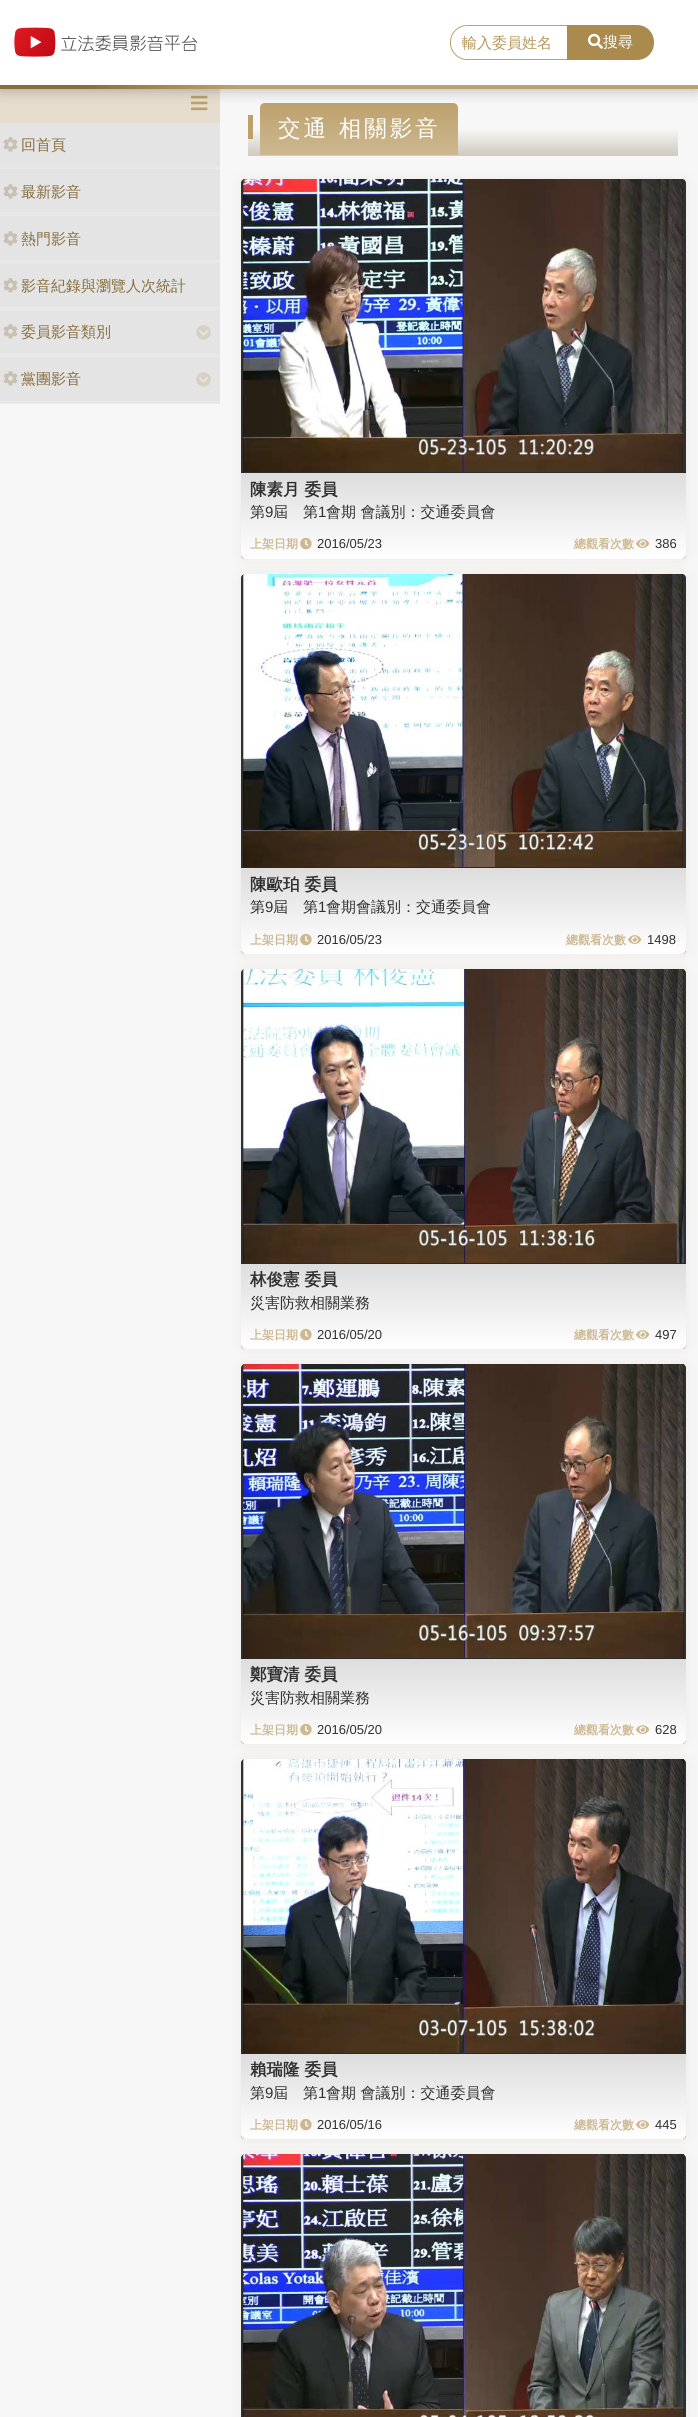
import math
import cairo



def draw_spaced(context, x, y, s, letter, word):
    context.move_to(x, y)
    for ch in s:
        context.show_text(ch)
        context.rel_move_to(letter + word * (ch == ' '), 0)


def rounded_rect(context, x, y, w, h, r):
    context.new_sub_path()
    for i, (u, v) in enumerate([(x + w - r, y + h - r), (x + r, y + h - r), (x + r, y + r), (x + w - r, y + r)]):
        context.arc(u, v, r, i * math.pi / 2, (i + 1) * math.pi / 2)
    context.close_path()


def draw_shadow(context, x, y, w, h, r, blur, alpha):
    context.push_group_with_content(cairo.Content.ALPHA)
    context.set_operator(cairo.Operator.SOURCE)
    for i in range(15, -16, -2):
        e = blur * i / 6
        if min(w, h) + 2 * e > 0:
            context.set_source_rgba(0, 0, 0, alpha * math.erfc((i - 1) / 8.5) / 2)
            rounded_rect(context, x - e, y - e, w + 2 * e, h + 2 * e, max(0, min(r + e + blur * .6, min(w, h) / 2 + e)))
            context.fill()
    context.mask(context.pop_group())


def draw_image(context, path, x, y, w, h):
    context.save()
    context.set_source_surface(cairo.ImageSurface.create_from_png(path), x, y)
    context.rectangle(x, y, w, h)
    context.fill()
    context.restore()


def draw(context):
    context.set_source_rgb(247 / 255, 247 / 255, 247 / 255)
    context.paint()
    context.set_source_rgb(230 / 255, 221 / 255, 206 / 255)
    context.rectangle(0, 89, 220, 34)
    context.fill()
    draw_image(context, "images/3.png", 191, 95, 17, 16)
    gradient = cairo.LinearGradient(463, 103, 463, 155)
    gradient.add_color_stop_rgba(0.5, 247 / 255, 247 / 255, 247 / 255, 1)
    gradient.add_color_stop_rgba(1, 208 / 255, 203 / 255, 192 / 255, 1)
    context.set_source(gradient)
    context.rectangle(248, 130, 430, 25)
    context.fill()
    gradient = cairo.LinearGradient(359, 103, 359, 155)
    gradient.add_color_stop_rgba(0, 189 / 255, 161 / 255, 109 / 255, 1)
    gradient.add_color_stop_rgba(1, 205 / 255, 184 / 255, 144 / 255, 1)
    context.set_source(gradient)
    context.new_path()
    context.move_to(265, 103)
    context.line_to(453, 103)
    context.curve_to(456, 103, 458, 105, 458, 108)
    context.line_to(458, 155)
    context.line_to(260, 155)
    context.line_to(260, 108)
    context.curve_to(260, 105, 262, 103, 265, 103)
    context.close_path()
    context.fill()
    context.set_source_rgb(0, 0, 0)
    draw_shadow(context, 0, 0, 698, 89, 0, 7.5, 0.3)
    gradient = cairo.LinearGradient(0, 45, 698, 44)
    gradient.add_color_stop_rgba(0.12, 135 / 255, 110 / 255, 61 / 255, 1)
    gradient.add_color_stop_rgba(0.34, 189 / 255, 161 / 255, 109 / 255, 1)
    context.set_source(gradient)
    context.rectangle(0, 85, 698, 4)
    context.fill()
    context.set_source_rgb(1, 1, 1)
    context.rectangle(0, 0, 698, 85)
    context.fill()
    draw_image(context, "images/1.png", 14, 27, 184, 30)
    context.new_path()
    context.move_to(467, 25.5)
    context.line_to(567.5, 25.5)
    context.line_to(567.5, 59.5)
    context.line_to(467, 59.5)
    context.curve_to(458, 59.5, 450.5, 52, 450.5, 43)
    context.line_to(450.5, 42)
    context.curve_to(450.5, 33, 458, 25.5, 467, 25.5)
    context.close_path()
    context.set_source_rgb(189 / 255, 161 / 255, 109 / 255)
    context.set_line_width(1)
    context.stroke()
    context.set_source_rgb(170 / 255, 138 / 255, 77 / 255)
    context.new_path()
    context.move_to(567, 25)
    context.line_to(637, 25)
    context.curve_to(646.5, 25, 654, 32.5, 654, 42)
    context.line_to(654, 43)
    context.curve_to(654, 52.5, 646.5, 60, 637, 60)
    context.line_to(567, 60)
    context.close_path()
    context.fill()
    draw_image(context, "images/2.png", 588, 33, 15, 16)
    context.set_source_rgb(234 / 255, 234 / 255, 234 / 255)
    context.rectangle(0, 166, 220, 238)
    context.fill()
    context.set_source_rgb(229 / 255, 229 / 255, 229 / 255)
    context.rectangle(0, 167, 220, 1)
    context.fill()
    context.set_source_rgb(228 / 255, 228 / 255, 228 / 255)
    context.rectangle(0, 123, 220, 43)
    context.fill()
    draw_image(context, "images/4.png", 3, 137, 15, 15)
    context.set_source_rgb(229 / 255, 229 / 255, 229 / 255)
    context.rectangle(0, 214, 220, 1)
    context.fill()
    context.set_source_rgb(228 / 255, 228 / 255, 228 / 255)
    context.rectangle(0, 169, 220, 44)
    context.fill()
    draw_image(context, "images/4.png", 3, 184, 15, 15)
    context.set_source_rgb(229 / 255, 229 / 255, 229 / 255)
    context.rectangle(0, 261, 220, 1)
    context.fill()
    context.set_source_rgb(228 / 255, 228 / 255, 228 / 255)
    context.rectangle(0, 216, 220, 44)
    context.fill()
    draw_image(context, "images/4.png", 3, 231, 15, 15)
    context.set_source_rgb(229 / 255, 229 / 255, 229 / 255)
    context.rectangle(0, 308, 220, 1)
    context.fill()
    context.set_source_rgb(228 / 255, 228 / 255, 228 / 255)
    context.rectangle(0, 263, 220, 44)
    context.fill()
    draw_image(context, "images/4.png", 3, 278, 15, 15)
    context.set_source_rgb(229 / 255, 229 / 255, 229 / 255)
    context.rectangle(0, 355, 220, 1)
    context.fill()
    context.set_source_rgb(228 / 255, 228 / 255, 228 / 255)
    context.rectangle(0, 310, 220, 44)
    context.fill()
    draw_image(context, "images/4.png", 3, 324, 15, 15)
    draw_image(context, "images/5.png", 196, 325, 15, 15)
    context.set_source_rgb(229 / 255, 229 / 255, 229 / 255)
    context.rectangle(0, 402, 220, 1)
    context.fill()
    context.set_source_rgb(228 / 255, 228 / 255, 228 / 255)
    context.rectangle(0, 357, 220, 44)
    context.fill()
    draw_image(context, "images/4.png", 3, 371, 15, 15)
    draw_image(context, "images/5.png", 196, 372, 15, 15)
    context.set_source_rgb(218 / 255, 204 / 255, 178 / 255)
    context.rectangle(248, 155, 430, 1)
    context.fill()
    context.set_source_rgb(189 / 255, 161 / 255, 109 / 255)
    context.rectangle(248, 115, 5, 24)
    context.fill()
    context.set_source_rgb(135 / 255, 110 / 255, 61 / 255)
    draw_shadow(context, 241, 179, 445, 380, 4, 7, 0.1)
    context.set_source_rgb(48 / 255, 48 / 255, 48 / 255)
    rounded_rect(context, 241, 179, 445, 380, 4)
    context.fill()
    draw_image(context, "images/6.png", 243, 179, 440, 293)
    context.set_source_rgb(42 / 255, 42 / 255, 42 / 255)
    context.rectangle(241, 472, 445, 1)
    context.fill()
    gradient = cairo.LinearGradient(464, 473, 464, 559)
    gradient.add_color_stop_rgba(0, 221 / 255, 221 / 255, 221 / 255, 1)
    gradient.add_color_stop_rgba(1, 1, 1, 1, 1)
    context.set_source(gradient)
    context.new_path()
    context.move_to(241, 473)
    context.line_to(686, 473)
    context.line_to(686, 555)
    context.curve_to(686, 557, 684, 559, 682, 559)
    context.line_to(245, 559)
    context.curve_to(243, 559, 241, 557, 241, 555)
    context.close_path()
    context.fill()
    draw_image(context, "images/7.png", 300, 537, 12, 13)
    draw_image(context, "images/8.png", 636, 539, 14, 9)
    context.set_source_rgb(135 / 255, 110 / 255, 61 / 255)
    draw_shadow(context, 241, 574, 445, 380, 4, 7, 0.1)
    context.set_source_rgb(48 / 255, 48 / 255, 48 / 255)
    rounded_rect(context, 241, 574, 445, 380, 4)
    context.fill()
    draw_image(context, "images/9.png", 243, 574, 440, 293)
    context.set_source_rgb(42 / 255, 42 / 255, 42 / 255)
    context.rectangle(241, 867, 445, 1)
    context.fill()
    gradient = cairo.LinearGradient(464, 868, 464, 954)
    gradient.add_color_stop_rgba(0, 221 / 255, 221 / 255, 221 / 255, 1)
    gradient.add_color_stop_rgba(1, 1, 1, 1, 1)
    context.set_source(gradient)
    context.new_path()
    context.move_to(241, 868)
    context.line_to(686, 868)
    context.line_to(686, 950)
    context.curve_to(686, 952, 684, 954, 682, 954)
    context.line_to(245, 954)
    context.curve_to(243, 954, 241, 952, 241, 950)
    context.close_path()
    context.fill()
    draw_image(context, "images/10.png", 300, 933, 12, 13)
    draw_image(context, "images/11.png", 628, 935, 14, 9)
    context.set_source_rgb(135 / 255, 110 / 255, 61 / 255)
    draw_shadow(context, 241, 969, 445, 380, 4, 7, 0.1)
    context.set_source_rgb(48 / 255, 48 / 255, 48 / 255)
    rounded_rect(context, 241, 969, 445, 380, 4)
    context.fill()
    draw_image(context, "images/12.png", 243, 969, 441, 294)
    context.set_source_rgb(42 / 255, 42 / 255, 42 / 255)
    context.rectangle(241, 1263, 445, 1)
    context.fill()
    gradient = cairo.LinearGradient(464, 1264, 464, 1349)
    gradient.add_color_stop_rgba(0, 221 / 255, 221 / 255, 221 / 255, 1)
    gradient.add_color_stop_rgba(1, 1, 1, 1, 1)
    context.set_source(gradient)
    context.new_path()
    context.move_to(241, 1264)
    context.line_to(686, 1264)
    context.line_to(686, 1345)
    context.curve_to(686, 1347, 684, 1349, 682, 1349)
    context.line_to(245, 1349)
    context.curve_to(243, 1349, 241, 1347, 241, 1345)
    context.close_path()
    context.fill()
    draw_image(context, "images/10.png", 300, 1328, 12, 13)
    draw_image(context, "images/11.png", 636, 1330, 14, 9)
    context.set_source_rgb(135 / 255, 110 / 255, 61 / 255)
    draw_shadow(context, 241, 1364, 445, 380, 4, 7, 0.1)
    context.set_source_rgb(48 / 255, 48 / 255, 48 / 255)
    rounded_rect(context, 241, 1364, 445, 380, 4)
    context.fill()
    draw_image(context, "images/13.png", 243, 1364, 441, 294)
    context.set_source_rgb(42 / 255, 42 / 255, 42 / 255)
    context.rectangle(241, 1658, 445, 1)
    context.fill()
    gradient = cairo.LinearGradient(464, 1659, 464, 1744)
    gradient.add_color_stop_rgba(0, 221 / 255, 221 / 255, 221 / 255, 1)
    gradient.add_color_stop_rgba(1, 1, 1, 1, 1)
    context.set_source(gradient)
    context.new_path()
    context.move_to(241, 1659)
    context.line_to(686, 1659)
    context.line_to(686, 1740)
    context.curve_to(686, 1742, 684, 1744, 682, 1744)
    context.line_to(245, 1744)
    context.curve_to(243, 1744, 241, 1742, 241, 1740)
    context.close_path()
    context.fill()
    draw_image(context, "images/10.png", 300, 1723, 12, 13)
    draw_image(context, "images/11.png", 636, 1725, 14, 9)
    context.set_source_rgb(135 / 255, 110 / 255, 61 / 255)
    draw_shadow(context, 241, 1759, 445, 380, 4, 7, 0.1)
    context.set_source_rgb(48 / 255, 48 / 255, 48 / 255)
    rounded_rect(context, 241, 1759, 445, 380, 4)
    context.fill()
    draw_image(context, "images/14.png", 243, 1759, 441, 294)
    context.set_source_rgb(42 / 255, 42 / 255, 42 / 255)
    context.rectangle(241, 2053, 445, 1)
    context.fill()
    gradient = cairo.LinearGradient(464, 2054, 464, 2139)
    gradient.add_color_stop_rgba(0, 221 / 255, 221 / 255, 221 / 255, 1)
    gradient.add_color_stop_rgba(1, 1, 1, 1, 1)
    context.set_source(gradient)
    context.new_path()
    context.move_to(241, 2054)
    context.line_to(686, 2054)
    context.line_to(686, 2135)
    context.curve_to(686, 2137, 684, 2139, 682, 2139)
    context.line_to(245, 2139)
    context.curve_to(243, 2139, 241, 2137, 241, 2135)
    context.close_path()
    context.fill()
    draw_image(context, "images/10.png", 300, 2118, 12, 13)
    draw_image(context, "images/11.png", 636, 2120, 14, 9)
    context.set_source_rgb(135 / 255, 110 / 255, 61 / 255)
    draw_shadow(context, 241, 2154, 445, 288, 4, 7, 0.1)
    context.set_source_rgb(48 / 255, 48 / 255, 48 / 255)
    context.new_path()
    context.move_to(245, 2154)
    context.line_to(682, 2154)
    context.curve_to(684, 2154, 686, 2156, 686, 2158)
    context.line_to(686, 2417)
    context.line_to(241, 2417)
    context.line_to(241, 2158)
    context.curve_to(241, 2156, 243, 2154, 245, 2154)
    context.close_path()
    context.fill()
    draw_image(context, "images/15.png", 243, 2154, 441, 263)
    context.select_font_face("WenQuanYi Zen Hei Medium")
    context.set_font_size(15)
    context.set_source_rgb(181 / 255, 150 / 255, 92 / 255)
    context.move_to(462, 48)
    context.show_text("輸入委員姓名")
    context.set_source_rgb(1, 1, 1)
    context.move_to(603, 47)
    context.show_text("搜尋")
    context.set_source_rgb(135 / 255, 110 / 255, 61 / 255)
    context.move_to(21, 150)
    context.show_text("回首頁")
    context.move_to(21, 197)
    context.show_text("最新影音")
    context.move_to(21, 244)
    context.show_text("熱門影音")
    context.move_to(21, 291)
    context.show_text("影音紀錄與瀏覽人次統計")
    context.move_to(21, 337)
    context.show_text("委員影音類別")
    context.move_to(21, 384)
    context.show_text("黨團影音")
    context.set_font_size(22.5)
    context.set_source_rgb(1, 1, 1)
    draw_spaced(context, 278, 136, "交通 相關影音", 3, 0)
    context.select_font_face("WenQuanYi Zen Hei", cairo.FontSlant.NORMAL, cairo.FontWeight.BOLD)
    context.set_font_size(16.5)
    context.set_source_rgb(48 / 255, 48 / 255, 48 / 255)
    context.move_to(250, 495)
    context.show_text("陳素月 委員")
    context.select_font_face("WenQuanYi Zen Hei Medium")
    context.set_font_size(15)
    context.move_to(250, 517)
    context.show_text("第")
    context.select_font_face("Liberation Sans")
    context.move_to(265, 517)
    context.show_text("9")
    context.select_font_face("WenQuanYi Zen Hei Medium")
    context.move_to(273, 517)
    context.show_text("屆　第")
    context.select_font_face("Liberation Sans")
    context.move_to(318, 517)
    context.show_text("1")
    context.select_font_face("WenQuanYi Zen Hei Medium")
    context.move_to(326, 517)
    context.show_text("會期 會議別：交通委員會")
    context.select_font_face("WenQuanYi Zen Hei", cairo.FontSlant.NORMAL, cairo.FontWeight.BOLD)
    context.set_font_size(12)
    context.set_source_rgb(205 / 255, 184 / 255, 144 / 255)
    context.move_to(250, 548)
    context.show_text("上架日期")
    context.select_font_face("Liberation Sans")
    context.set_font_size(13)
    context.set_source_rgb(48 / 255, 48 / 255, 48 / 255)
    context.move_to(317, 548)
    context.show_text("2016/05/23")
    context.select_font_face("WenQuanYi Zen Hei", cairo.FontSlant.NORMAL, cairo.FontWeight.BOLD)
    context.set_font_size(12)
    context.set_source_rgb(205 / 255, 184 / 255, 144 / 255)
    context.move_to(574, 548)
    context.show_text("總觀看次數")
    context.select_font_face("Liberation Sans")
    context.set_font_size(13)
    context.set_source_rgb(48 / 255, 48 / 255, 48 / 255)
    context.move_to(655, 548)
    context.show_text("386")
    context.select_font_face("WenQuanYi Zen Hei", cairo.FontSlant.NORMAL, cairo.FontWeight.BOLD)
    context.set_font_size(16.5)
    context.move_to(250, 890)
    context.show_text("陳歐珀 委員")
    context.select_font_face("WenQuanYi Zen Hei Medium")
    context.set_font_size(15)
    context.move_to(250, 912)
    context.show_text("第")
    context.select_font_face("Liberation Sans")
    context.move_to(265, 912)
    context.show_text("9")
    context.select_font_face("WenQuanYi Zen Hei Medium")
    context.move_to(273, 912)
    context.show_text("屆　第")
    context.select_font_face("Liberation Sans")
    context.move_to(318, 912)
    context.show_text("1")
    context.select_font_face("WenQuanYi Zen Hei Medium")
    context.move_to(326, 912)
    context.show_text("會期會議別：交通委員會")
    context.select_font_face("WenQuanYi Zen Hei", cairo.FontSlant.NORMAL, cairo.FontWeight.BOLD)
    context.set_font_size(12)
    context.set_source_rgb(205 / 255, 184 / 255, 144 / 255)
    context.move_to(250, 944)
    context.show_text("上架日期")
    context.select_font_face("Liberation Sans")
    context.set_font_size(13)
    context.set_source_rgb(48 / 255, 48 / 255, 48 / 255)
    context.move_to(317, 944)
    context.show_text("2016/05/23")
    context.select_font_face("WenQuanYi Zen Hei", cairo.FontSlant.NORMAL, cairo.FontWeight.BOLD)
    context.set_font_size(12)
    context.set_source_rgb(205 / 255, 184 / 255, 144 / 255)
    context.move_to(566, 944)
    context.show_text("總觀看次數")
    context.select_font_face("Liberation Sans")
    context.set_font_size(13)
    context.set_source_rgb(48 / 255, 48 / 255, 48 / 255)
    context.move_to(647, 944)
    context.show_text("1498")
    context.select_font_face("WenQuanYi Zen Hei", cairo.FontSlant.NORMAL, cairo.FontWeight.BOLD)
    context.set_font_size(16.5)
    context.move_to(250, 1285)
    context.show_text("林俊憲 委員")
    context.select_font_face("WenQuanYi Zen Hei Medium")
    context.set_font_size(15)
    context.move_to(250, 1308)
    context.show_text("災害防救相關業務")
    context.select_font_face("WenQuanYi Zen Hei", cairo.FontSlant.NORMAL, cairo.FontWeight.BOLD)
    context.set_font_size(12)
    context.set_source_rgb(205 / 255, 184 / 255, 144 / 255)
    context.move_to(250, 1339)
    context.show_text("上架日期")
    context.select_font_face("Liberation Sans")
    context.set_font_size(13)
    context.set_source_rgb(48 / 255, 48 / 255, 48 / 255)
    context.move_to(317, 1339)
    context.show_text("2016/05/20")
    context.select_font_face("WenQuanYi Zen Hei", cairo.FontSlant.NORMAL, cairo.FontWeight.BOLD)
    context.set_font_size(12)
    context.set_source_rgb(205 / 255, 184 / 255, 144 / 255)
    context.move_to(574, 1339)
    context.show_text("總觀看次數")
    context.select_font_face("Liberation Sans")
    context.set_font_size(13)
    context.set_source_rgb(48 / 255, 48 / 255, 48 / 255)
    context.move_to(655, 1339)
    context.show_text("497")
    context.select_font_face("WenQuanYi Zen Hei", cairo.FontSlant.NORMAL, cairo.FontWeight.BOLD)
    context.set_font_size(16.5)
    context.move_to(250, 1680)
    context.show_text("鄭寶清 委員")
    context.select_font_face("WenQuanYi Zen Hei Medium")
    context.set_font_size(15)
    context.move_to(250, 1703)
    context.show_text("災害防救相關業務")
    context.select_font_face("WenQuanYi Zen Hei", cairo.FontSlant.NORMAL, cairo.FontWeight.BOLD)
    context.set_font_size(12)
    context.set_source_rgb(205 / 255, 184 / 255, 144 / 255)
    context.move_to(250, 1734)
    context.show_text("上架日期")
    context.select_font_face("Liberation Sans")
    context.set_font_size(13)
    context.set_source_rgb(48 / 255, 48 / 255, 48 / 255)
    context.move_to(317, 1734)
    context.show_text("2016/05/20")
    context.select_font_face("WenQuanYi Zen Hei", cairo.FontSlant.NORMAL, cairo.FontWeight.BOLD)
    context.set_font_size(12)
    context.set_source_rgb(205 / 255, 184 / 255, 144 / 255)
    context.move_to(574, 1734)
    context.show_text("總觀看次數")
    context.select_font_face("Liberation Sans")
    context.set_font_size(13)
    context.set_source_rgb(48 / 255, 48 / 255, 48 / 255)
    context.move_to(655, 1734)
    context.show_text("628")
    context.select_font_face("WenQuanYi Zen Hei", cairo.FontSlant.NORMAL, cairo.FontWeight.BOLD)
    context.set_font_size(16.5)
    context.move_to(250, 2075)
    context.show_text("賴瑞隆 委員")
    context.select_font_face("WenQuanYi Zen Hei Medium")
    context.set_font_size(15)
    context.move_to(250, 2098)
    context.show_text("第")
    context.select_font_face("Liberation Sans")
    context.move_to(265, 2098)
    context.show_text("9")
    context.select_font_face("WenQuanYi Zen Hei Medium")
    context.move_to(273, 2098)
    context.show_text("屆　第")
    context.select_font_face("Liberation Sans")
    context.move_to(318, 2098)
    context.show_text("1")
    context.select_font_face("WenQuanYi Zen Hei Medium")
    context.move_to(326, 2098)
    context.show_text("會期 會議別：交通委員會")
    context.select_font_face("WenQuanYi Zen Hei", cairo.FontSlant.NORMAL, cairo.FontWeight.BOLD)
    context.set_font_size(12)
    context.set_source_rgb(205 / 255, 184 / 255, 144 / 255)
    context.move_to(250, 2129)
    context.show_text("上架日期")
    context.select_font_face("Liberation Sans")
    context.set_font_size(13)
    context.set_source_rgb(48 / 255, 48 / 255, 48 / 255)
    context.move_to(317, 2129)
    context.show_text("2016/05/16")
    context.select_font_face("WenQuanYi Zen Hei", cairo.FontSlant.NORMAL, cairo.FontWeight.BOLD)
    context.set_font_size(12)
    context.set_source_rgb(205 / 255, 184 / 255, 144 / 255)
    context.move_to(574, 2129)
    context.show_text("總觀看次數")
    context.select_font_face("Liberation Sans")
    context.set_font_size(13)
    context.set_source_rgb(48 / 255, 48 / 255, 48 / 255)
    context.move_to(655, 2129)
    context.show_text("445")


surface = cairo.ImageSurface(cairo.Format.RGB24, 698, 2417)
context = cairo.Context(surface)
options = cairo.FontOptions()
options.set_hint_metrics(cairo.HintMetrics.OFF)
options.set_hint_style(cairo.HintStyle.NONE)
context.set_font_options(options)
context.set_miter_limit(4)
draw(context)
surface.write_to_png("out.png")
